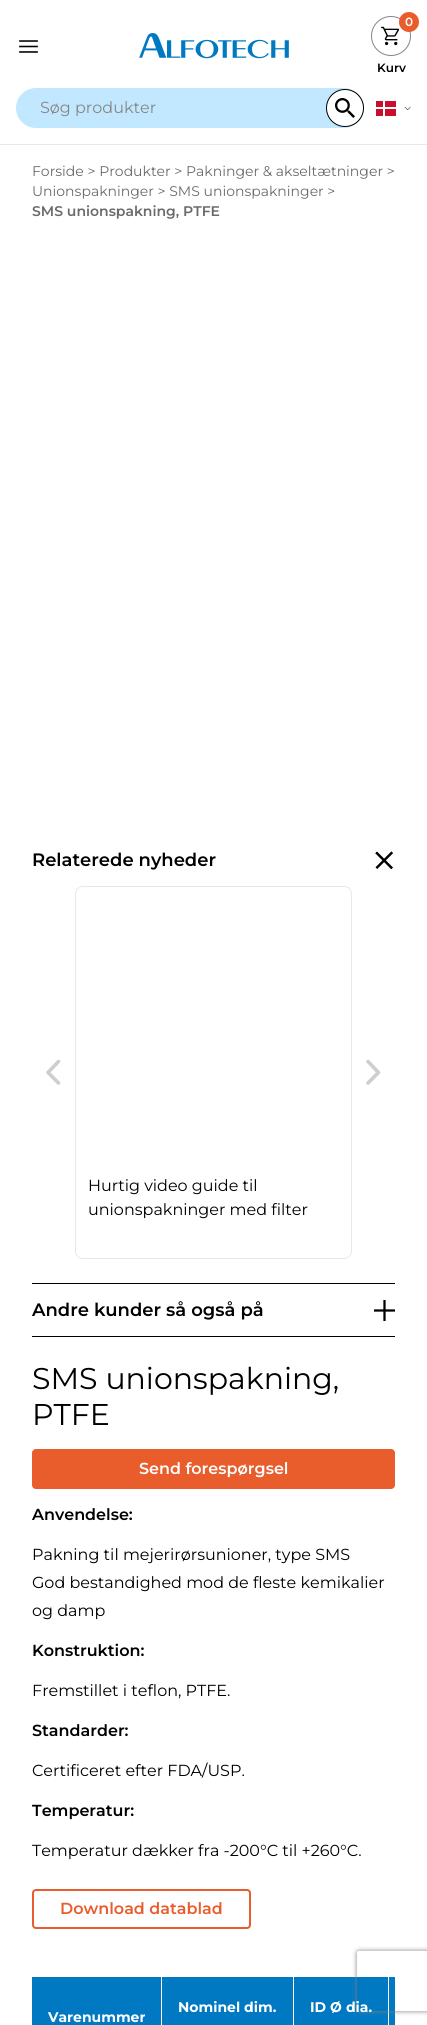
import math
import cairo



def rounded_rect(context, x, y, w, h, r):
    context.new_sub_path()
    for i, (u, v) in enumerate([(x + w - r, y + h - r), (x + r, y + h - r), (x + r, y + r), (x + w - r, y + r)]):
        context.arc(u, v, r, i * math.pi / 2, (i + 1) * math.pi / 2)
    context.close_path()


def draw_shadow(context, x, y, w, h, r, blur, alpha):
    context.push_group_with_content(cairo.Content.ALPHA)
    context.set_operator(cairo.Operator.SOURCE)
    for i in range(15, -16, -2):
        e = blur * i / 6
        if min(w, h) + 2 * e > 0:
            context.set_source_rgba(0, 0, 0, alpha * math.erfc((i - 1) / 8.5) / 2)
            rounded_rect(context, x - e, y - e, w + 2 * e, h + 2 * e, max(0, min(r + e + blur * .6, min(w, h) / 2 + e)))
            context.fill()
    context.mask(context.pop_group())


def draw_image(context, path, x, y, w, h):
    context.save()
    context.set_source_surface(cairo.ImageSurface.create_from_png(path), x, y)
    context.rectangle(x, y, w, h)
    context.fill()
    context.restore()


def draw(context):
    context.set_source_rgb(1, 1, 1)
    context.paint()
    context.set_source_rgb(232 / 255, 232 / 255, 232 / 255)
    context.rectangle(0, 144, 427, 1)
    context.fill()
    draw_image(context, "images/1.png", 19, 40, 19, 13)
    draw_image(context, "images/2.png", 139, 33, 150, 26)
    context.arc(391, 36, 19.5, 0, 2 * math.pi)
    context.set_source_rgb(135 / 255, 134 / 255, 134 / 255)
    context.set_line_width(1)
    context.stroke()
    draw_image(context, "images/3.png", 381, 26, 19, 20)
    context.set_source_rgb(233 / 255, 92 / 255, 44 / 255)
    context.arc(409, 22, 10, 0, 2 * math.pi)
    context.fill()
    context.set_source_rgb(194 / 255, 232 / 255, 1)
    rounded_rect(context, 16, 88, 348, 40, 20)
    context.fill()
    context.set_source_rgb(1, 1, 1)
    context.arc(345, 108, 18.5, 0, 2 * math.pi)
    context.fill_preserve()
    context.set_source_rgb(0, 0, 0)
    context.stroke()
    draw_image(context, "images/4.png", 335, 98, 20, 20)
    context.set_source_rgb(200 / 255, 16 / 255, 46 / 255)
    context.rectangle(376, 101, 20, 15)
    context.fill()
    context.set_source_rgb(1, 1, 1)
    context.rectangle(383, 101, 2, 15)
    context.fill()
    context.rectangle(376, 107, 20, 2)
    context.fill()
    draw_image(context, "images/5.png", 404, 106, 7, 4)
    context.set_source_rgb(0, 0, 0)
    context.rectangle(32, 1283, 363, 1)
    context.fill()
    draw_image(context, "images/6.png", 375, 851, 19, 19)
    context.new_path()
    context.move_to(58.5, 1083)
    context.line_to(48, 1072.5)
    context.line_to(58.5, 1061.5)
    context.set_source_rgb(207 / 255, 206 / 255, 206 / 255)
    context.set_line_width(3.6)
    context.set_line_cap(cairo.LineCap.ROUND)
    context.set_line_join(cairo.LineJoin.ROUND)
    context.stroke()
    context.new_path()
    context.move_to(368, 1083)
    context.line_to(378.5, 1072.5)
    context.line_to(368, 1061.5)
    context.stroke()
    rounded_rect(context, 75.5, 886.5, 276, 372, 7.5)
    context.set_source_rgb(232 / 255, 232 / 255, 232 / 255)
    context.set_line_width(1)
    context.set_line_cap(cairo.LineCap.BUTT)
    context.set_line_join(cairo.LineJoin.MITER)
    context.stroke()
    context.set_source_rgb(0, 0, 0)
    context.rectangle(32, 1336, 363, 1)
    context.fill()
    draw_image(context, "images/7.png", 374, 1300, 21, 21)
    context.set_source_rgb(233 / 255, 92 / 255, 44 / 255)
    rounded_rect(context, 32, 1449, 363, 40, 4)
    context.fill()
    rounded_rect(context, 33, 1890, 217, 38, 3)
    context.set_line_width(2)
    context.stroke()
    context.set_source_rgb(0, 121 / 255, 194 / 255)
    context.rectangle(32, 1977, 363, 48)
    context.fill()
    context.set_source_rgb(1, 1, 1)
    context.rectangle(161, 1977, 1, 48)
    context.fill()
    context.rectangle(293, 1977, 1, 48)
    context.fill()
    context.rectangle(388, 1977, 1, 48)
    context.fill()
    context.save()
    context.set_fill_rule(cairo.FillRule.EVEN_ODD)
    context.new_path()
    context.move_to(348, 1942)
    context.line_to(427, 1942)
    context.line_to(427, 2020)
    context.line_to(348, 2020)
    context.close_path()
    context.move_to(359, 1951)
    context.line_to(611, 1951)
    context.curve_to(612, 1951, 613, 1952, 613, 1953)
    context.line_to(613, 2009)
    context.curve_to(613, 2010, 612, 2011, 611, 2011)
    context.line_to(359, 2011)
    context.curve_to(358, 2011, 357, 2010, 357, 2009)
    context.line_to(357, 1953)
    context.curve_to(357, 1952, 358, 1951, 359, 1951)
    context.close_path()
    context.clip()
    context.set_source_rgb(128 / 255, 128 / 255, 128 / 255)
    draw_shadow(context, 357, 1951, 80, 60, 2, 2.5, 1)
    context.restore()
    context.select_font_face("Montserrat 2 Thin")
    context.set_font_size(12)
    context.move_to(405, 26)
    context.show_text("0")
    context.set_source_rgb(0, 0, 0)
    context.move_to(377, 72)
    context.show_text("Kurv")
    context.select_font_face("Montserrat Thin")
    context.set_font_size(16)
    context.set_source_rgb(135 / 255, 134 / 255, 134 / 255)
    context.move_to(40, 113)
    context.show_text("Søg produkter")
    context.set_font_size(14)
    context.set_source_rgb(108 / 255, 107 / 255, 107 / 255)
    context.move_to(32, 176)
    context.show_text("Forside > Produkter > Pakninger & akseltætninger >")
    context.move_to(32, 196)
    context.show_text("Unionspakninger > SMS unionspakninger >")
    context.select_font_face("Montserrat 2 Thin")
    context.move_to(32, 216)
    context.show_text("SMS unionspakning, PTFE")
    context.set_font_size(18)
    context.set_source_rgb(0, 0, 0)
    context.move_to(32, 866)
    context.show_text("Relaterede nyheder")
    context.select_font_face("Montserrat Thin")
    context.set_font_size(16)
    context.move_to(88, 1191)
    context.show_text("Hurtig video guide til")
    context.move_to(88, 1215)
    context.show_text("unionspakninger med filter")
    context.select_font_face("Montserrat 2 Thin")
    context.set_font_size(18)
    context.move_to(32, 1316)
    context.show_text("Andre kunder så også på")
    context.select_font_face("Montserrat Thin")
    context.set_font_size(30)
    context.move_to(32, 1389)
    context.show_text("SMS unionspakning,")
    context.move_to(32, 1425)
    context.show_text("PTFE")
    context.select_font_face("Montserrat 2 Thin")
    context.set_font_size(16)
    context.set_source_rgb(1, 1, 1)
    context.move_to(139, 1474)
    context.show_text("Send forespørgsel")
    context.set_source_rgb(0, 0, 0)
    context.move_to(32, 1520)
    context.show_text("Anvendelse:")
    context.select_font_face("Montserrat Thin")
    context.move_to(32, 1560)
    context.show_text("Pakning til mejerirørsunioner, type SMS")
    context.move_to(32, 1588)
    context.show_text("God bestandighed mod de fleste kemikalier")
    context.move_to(32, 1616)
    context.show_text("og damp")
    context.select_font_face("Montserrat 2 Thin")
    context.move_to(32, 1656)
    context.show_text("Konstruktion:")
    context.select_font_face("Montserrat Thin")
    context.move_to(32, 1696)
    context.show_text("Fremstillet i teflon, PTFE.")
    context.select_font_face("Montserrat 2 Thin")
    context.move_to(32, 1736)
    context.show_text("Standarder:")
    context.select_font_face("Montserrat Thin")
    context.move_to(32, 1776)
    context.show_text("Certificeret efter FDA/USP.")
    context.select_font_face("Montserrat 2 Thin")
    context.move_to(32, 1816)
    context.show_text("Temperatur:")
    context.select_font_face("Montserrat Thin")
    context.move_to(32, 1856)
    context.show_text("Temperatur dækker fra -200°C til +260°C.")
    context.select_font_face("Montserrat 2 Thin")
    context.set_source_rgb(233 / 255, 92 / 255, 44 / 255)
    context.move_to(60, 1914)
    context.show_text("Download datablad")
    context.select_font_face("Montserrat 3 Thin")
    context.set_font_size(14)
    context.set_source_rgb(1, 1, 1)
    context.move_to(178, 2012)
    context.show_text("Nominel dim.")
    context.move_to(310, 2012)
    context.show_text("ID Ø dia.")
    context.move_to(48, 2022)
    context.show_text("Varenummer")


surface = cairo.ImageSurface(cairo.Format.RGB24, 427, 2025)
context = cairo.Context(surface)
options = cairo.FontOptions()
options.set_hint_metrics(cairo.HintMetrics.OFF)
options.set_hint_style(cairo.HintStyle.NONE)
context.set_font_options(options)
context.set_miter_limit(4)
draw(context)
surface.write_to_png("out.png")
